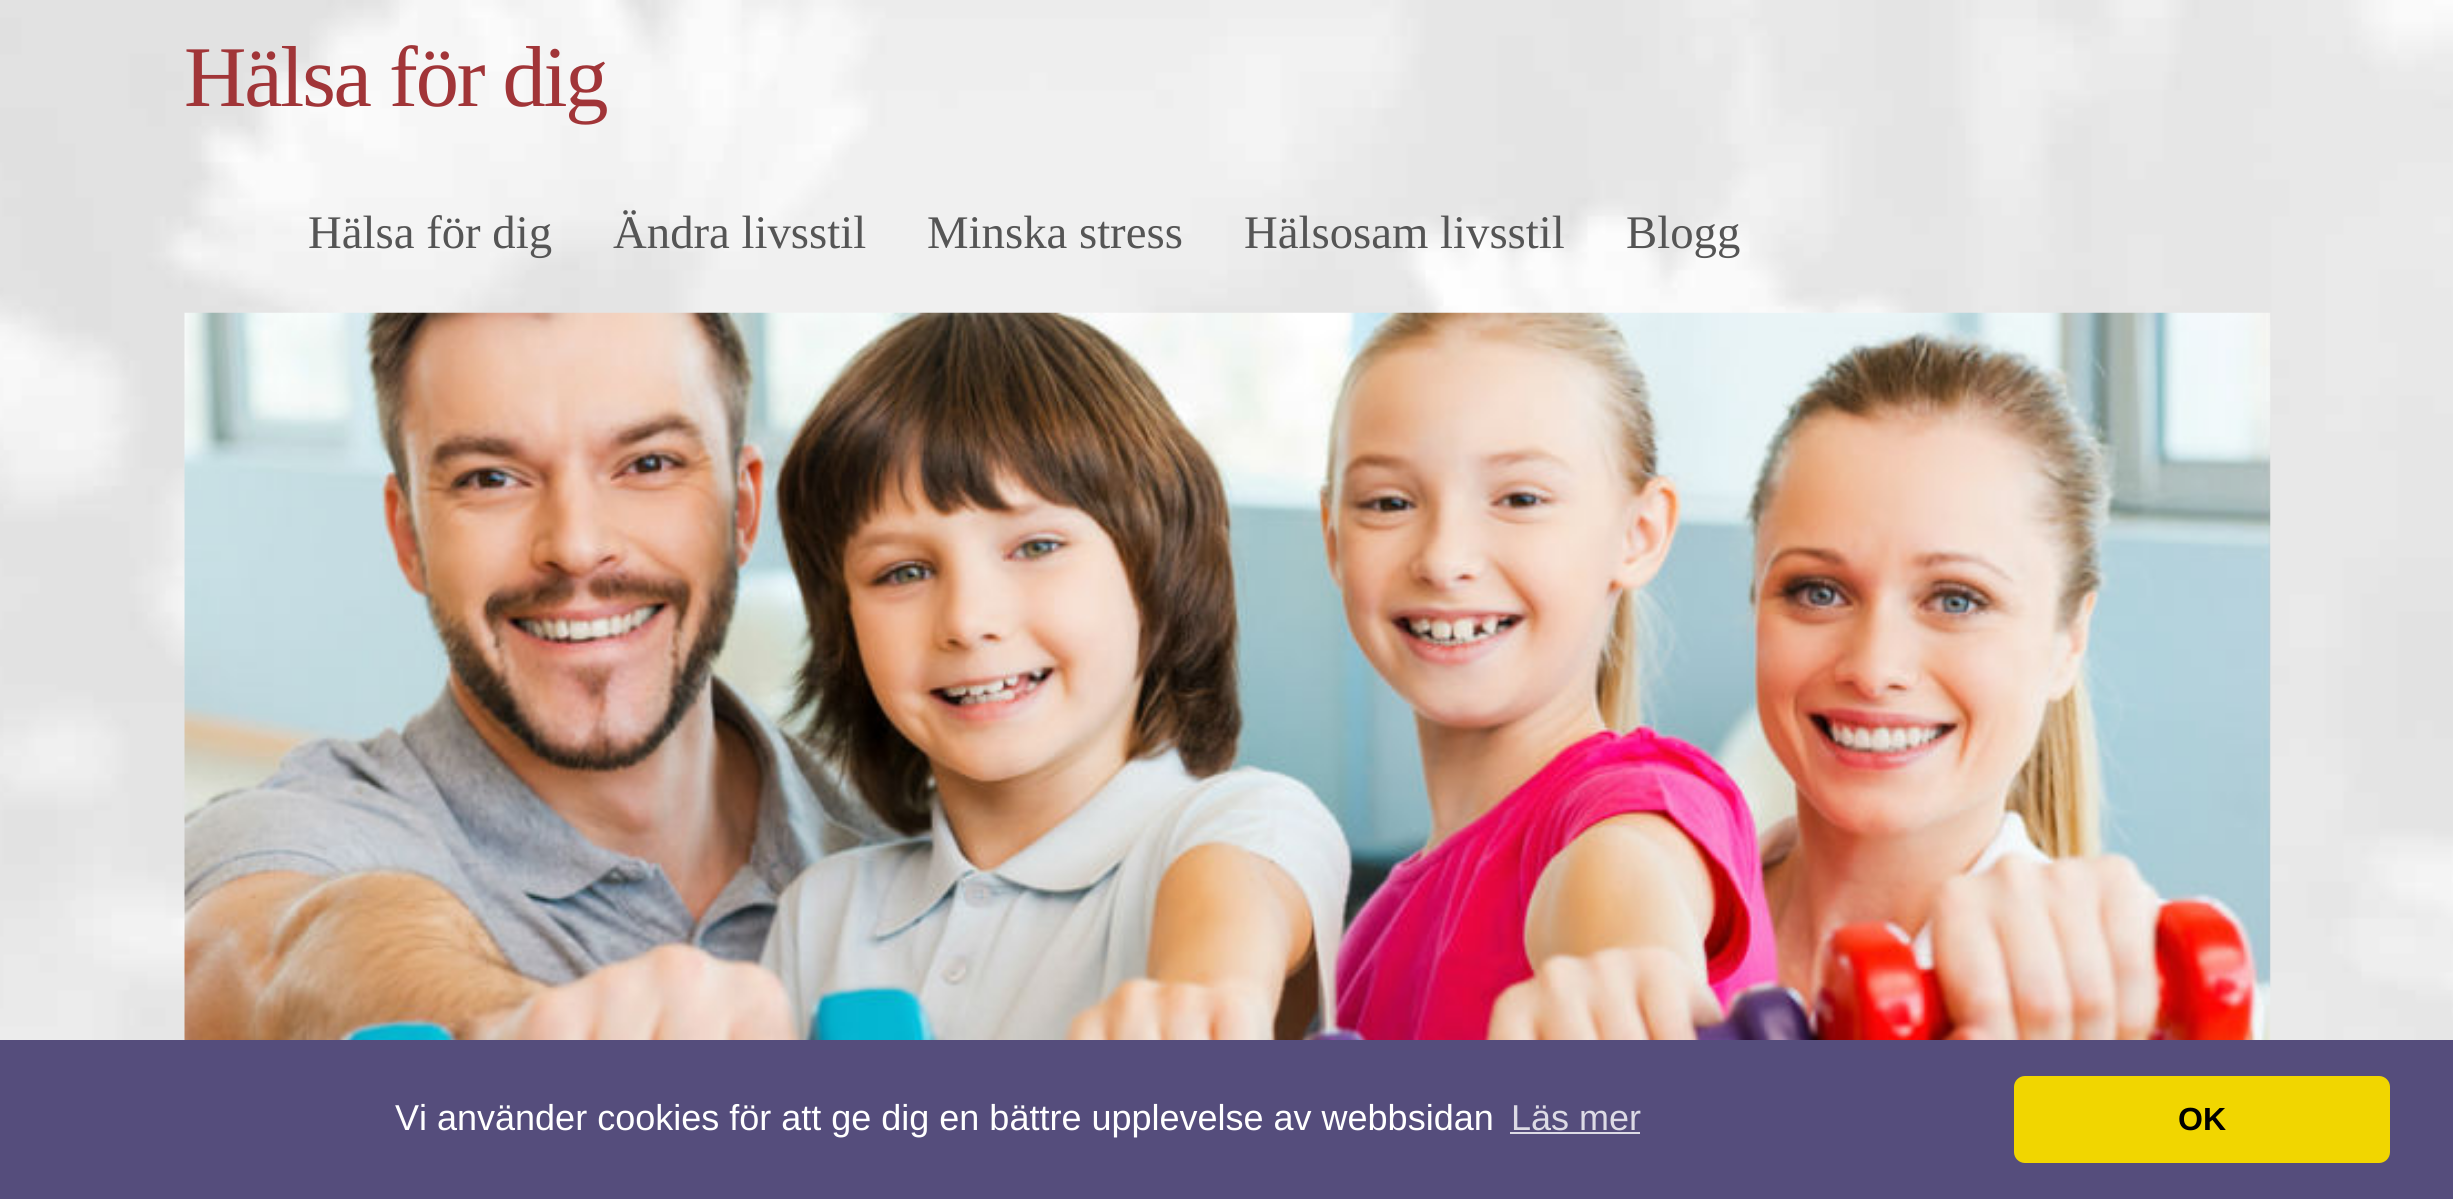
import math
import cairo



def draw_spaced(context, x, y, s, letter, word):
    context.move_to(x, y)
    for ch in s:
        context.show_text(ch)
        context.rel_move_to(letter + word * (ch == ' '), 0)


def rounded_rect(context, x, y, w, h, r):
    context.new_sub_path()
    for i, (u, v) in enumerate([(x + w - r, y + h - r), (x + r, y + h - r), (x + r, y + r), (x + w - r, y + r)]):
        context.arc(u, v, r, i * math.pi / 2, (i + 1) * math.pi / 2)
    context.close_path()


def draw_image(context, path, x, y, w, h):
    context.save()
    context.set_source_surface(cairo.ImageSurface.create_from_png(path), x, y)
    context.rectangle(x, y, w, h)
    context.fill()
    context.restore()


def draw(context):
    context.set_source_rgb(1, 1, 1)
    context.paint()
    draw_image(context, "images/1.png", 0, 0, 2453, 1040)
    draw_image(context, "images/2.png", 184, 312, 2087, 728)
    context.set_source_rgb(85 / 255, 77 / 255, 124 / 255)
    context.rectangle(0, 1040, 2453, 159)
    context.fill()
    context.set_source_rgb(221 / 255, 219 / 255, 229 / 255)
    context.rectangle(1510, 1132, 130, 2)
    context.fill()
    context.set_source_rgb(241 / 255, 214 / 255, 0)
    rounded_rect(context, 2014, 1076, 376, 87, 11)
    context.fill()
    context.select_font_face("Liberation Serif")
    context.set_font_size(86.5)
    context.set_source_rgb(161 / 255, 53 / 255, 56 / 255)
    draw_spaced(context, 184, 106, "Hälsa för dig", -2.25, 0)
    context.set_font_size(46.75)
    context.set_source_rgb(85 / 255, 85 / 255, 85 / 255)
    context.move_to(308, 248)
    context.show_text("Hälsa för dig")
    context.move_to(613, 248)
    context.show_text("Ändra livsstil")
    context.move_to(927, 248)
    context.show_text("Minska stress")
    context.move_to(1244, 248)
    context.show_text("Hälsosam livsstil")
    context.move_to(1626, 248)
    context.show_text("Blogg")
    context.select_font_face("Liberation Sans")
    context.set_font_size(36)
    context.set_source_rgb(1, 1, 1)
    context.move_to(395, 1130)
    context.show_text("Vi använder cookies för att ge dig en bättre upplevelse av webbsidan")
    context.set_source_rgb(221 / 255, 219 / 255, 229 / 255)
    context.move_to(1511, 1130)
    context.show_text("Läs mer")
    context.select_font_face("Liberation Sans", cairo.FontSlant.NORMAL, cairo.FontWeight.BOLD)
    context.set_font_size(32)
    context.set_source_rgb(0, 0, 0)
    context.move_to(2178, 1130)
    context.show_text("OK")


surface = cairo.ImageSurface(cairo.Format.RGB24, 2453, 1199)
context = cairo.Context(surface)
options = cairo.FontOptions()
options.set_hint_metrics(cairo.HintMetrics.OFF)
options.set_hint_style(cairo.HintStyle.NONE)
context.set_font_options(options)
context.set_miter_limit(4)
draw(context)
surface.write_to_png("out.png")
